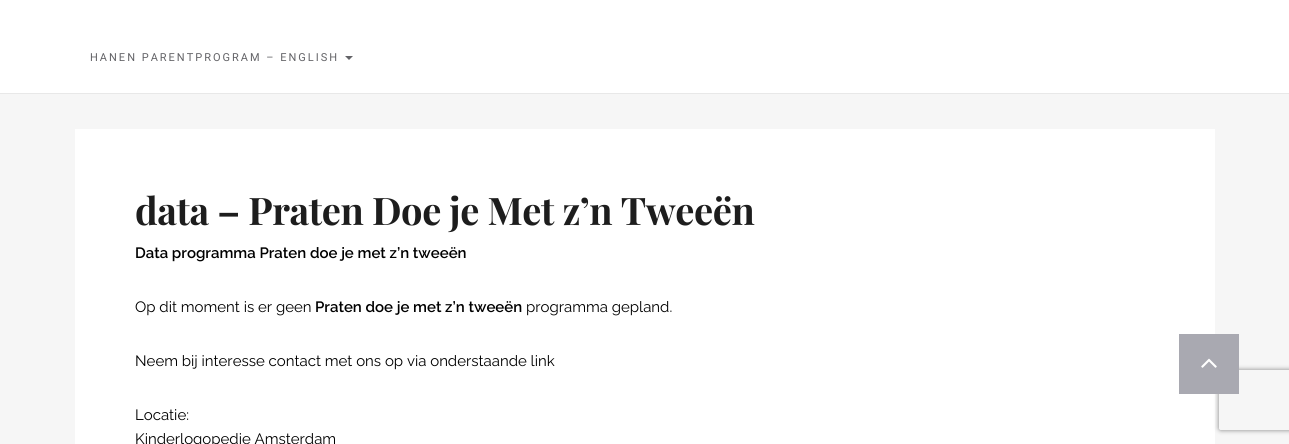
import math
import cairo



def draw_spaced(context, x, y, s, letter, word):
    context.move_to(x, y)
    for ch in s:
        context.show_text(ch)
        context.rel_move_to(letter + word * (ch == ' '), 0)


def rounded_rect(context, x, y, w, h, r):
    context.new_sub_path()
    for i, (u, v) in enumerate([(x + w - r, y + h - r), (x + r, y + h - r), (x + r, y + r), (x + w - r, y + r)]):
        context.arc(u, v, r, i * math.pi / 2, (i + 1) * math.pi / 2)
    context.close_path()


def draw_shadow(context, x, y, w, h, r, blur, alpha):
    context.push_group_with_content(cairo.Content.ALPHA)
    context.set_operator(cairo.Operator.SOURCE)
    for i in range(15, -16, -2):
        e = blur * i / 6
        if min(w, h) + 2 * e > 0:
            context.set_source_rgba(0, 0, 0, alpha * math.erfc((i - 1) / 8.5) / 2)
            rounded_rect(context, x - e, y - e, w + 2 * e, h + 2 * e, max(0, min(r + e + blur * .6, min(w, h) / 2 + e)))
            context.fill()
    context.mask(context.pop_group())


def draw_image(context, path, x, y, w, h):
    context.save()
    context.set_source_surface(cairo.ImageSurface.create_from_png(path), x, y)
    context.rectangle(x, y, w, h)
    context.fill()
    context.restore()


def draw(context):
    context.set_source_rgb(246 / 255, 246 / 255, 246 / 255)
    context.paint()
    context.set_source_rgb(1, 1, 1)
    context.rectangle(0, 0, 1289, 93)
    context.fill()
    context.set_source_rgb(232 / 255, 232 / 255, 232 / 255)
    context.rectangle(0, 93, 1289, 1)
    context.fill()
    context.set_source_rgb(99 / 255, 99 / 255, 103 / 255)
    context.new_path()
    context.move_to(345, 56)
    context.line_to(353, 56)
    context.line_to(349, 60)
    context.close_path()
    context.fill()
    context.set_source_rgb(1, 1, 1)
    context.rectangle(75, 129, 1140, 315)
    context.fill()
    context.save()
    context.set_fill_rule(cairo.FillRule.EVEN_ODD)
    context.new_path()
    context.move_to(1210, 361)
    context.line_to(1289, 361)
    context.line_to(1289, 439)
    context.line_to(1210, 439)
    context.close_path()
    context.move_to(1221, 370)
    context.line_to(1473, 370)
    context.curve_to(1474, 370, 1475, 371, 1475, 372)
    context.line_to(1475, 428)
    context.curve_to(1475, 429, 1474, 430, 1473, 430)
    context.line_to(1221, 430)
    context.curve_to(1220, 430, 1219, 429, 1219, 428)
    context.line_to(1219, 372)
    context.curve_to(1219, 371, 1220, 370, 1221, 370)
    context.close_path()
    context.clip()
    context.set_source_rgb(128 / 255, 128 / 255, 128 / 255)
    draw_shadow(context, 1219, 370, 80, 60, 2, 2.5, 1)
    context.restore()
    context.set_source_rgb(169 / 255, 169 / 255, 177 / 255)
    context.rectangle(1179, 334, 60, 60)
    context.fill()
    draw_image(context, "images/1.png", 1201, 358, 16, 10)
    context.select_font_face("Roboto")
    context.set_font_size(11)
    context.set_source_rgb(99 / 255, 99 / 255, 103 / 255)
    draw_spaced(context, 90, 61, "HANEN PARENTPROGRAM – ENGLISH", 2, 0)
    context.select_font_face("Playfair Display", cairo.FontSlant.NORMAL, cairo.FontWeight.BOLD)
    context.set_font_size(38)
    context.set_source_rgb(29 / 255, 29 / 255, 29 / 255)
    draw_spaced(context, 135, 225, "data – Praten Doe je Met z’n Tweeën", -0.4, 0)
    context.select_font_face("Raleway SemiBold")
    context.set_font_size(15)
    context.set_source_rgb(0, 0, 0)
    context.move_to(135, 258)
    context.show_text("Data programma Praten doe je met z’n tweeën")
    context.select_font_face("Raleway")
    context.move_to(135, 312)
    context.show_text("Op dit moment is er geen")
    context.select_font_face("Raleway SemiBold")
    context.move_to(315, 312)
    context.show_text("Praten doe je met z’n tweeën")
    context.select_font_face("Raleway")
    context.move_to(526, 312)
    context.show_text("programma gepland.")
    context.move_to(135, 366)
    context.show_text("Neem bij interesse contact met ons op via onderstaande link")
    context.move_to(135, 420)
    context.show_text("Locatie:")
    context.move_to(135, 444)
    context.show_text("Kinderlogopedie Amsterdam")


surface = cairo.ImageSurface(cairo.Format.RGB24, 1289, 444)
context = cairo.Context(surface)
options = cairo.FontOptions()
options.set_hint_metrics(cairo.HintMetrics.OFF)
options.set_hint_style(cairo.HintStyle.NONE)
context.set_font_options(options)
context.set_miter_limit(4)
draw(context)
surface.write_to_png("out.png")
